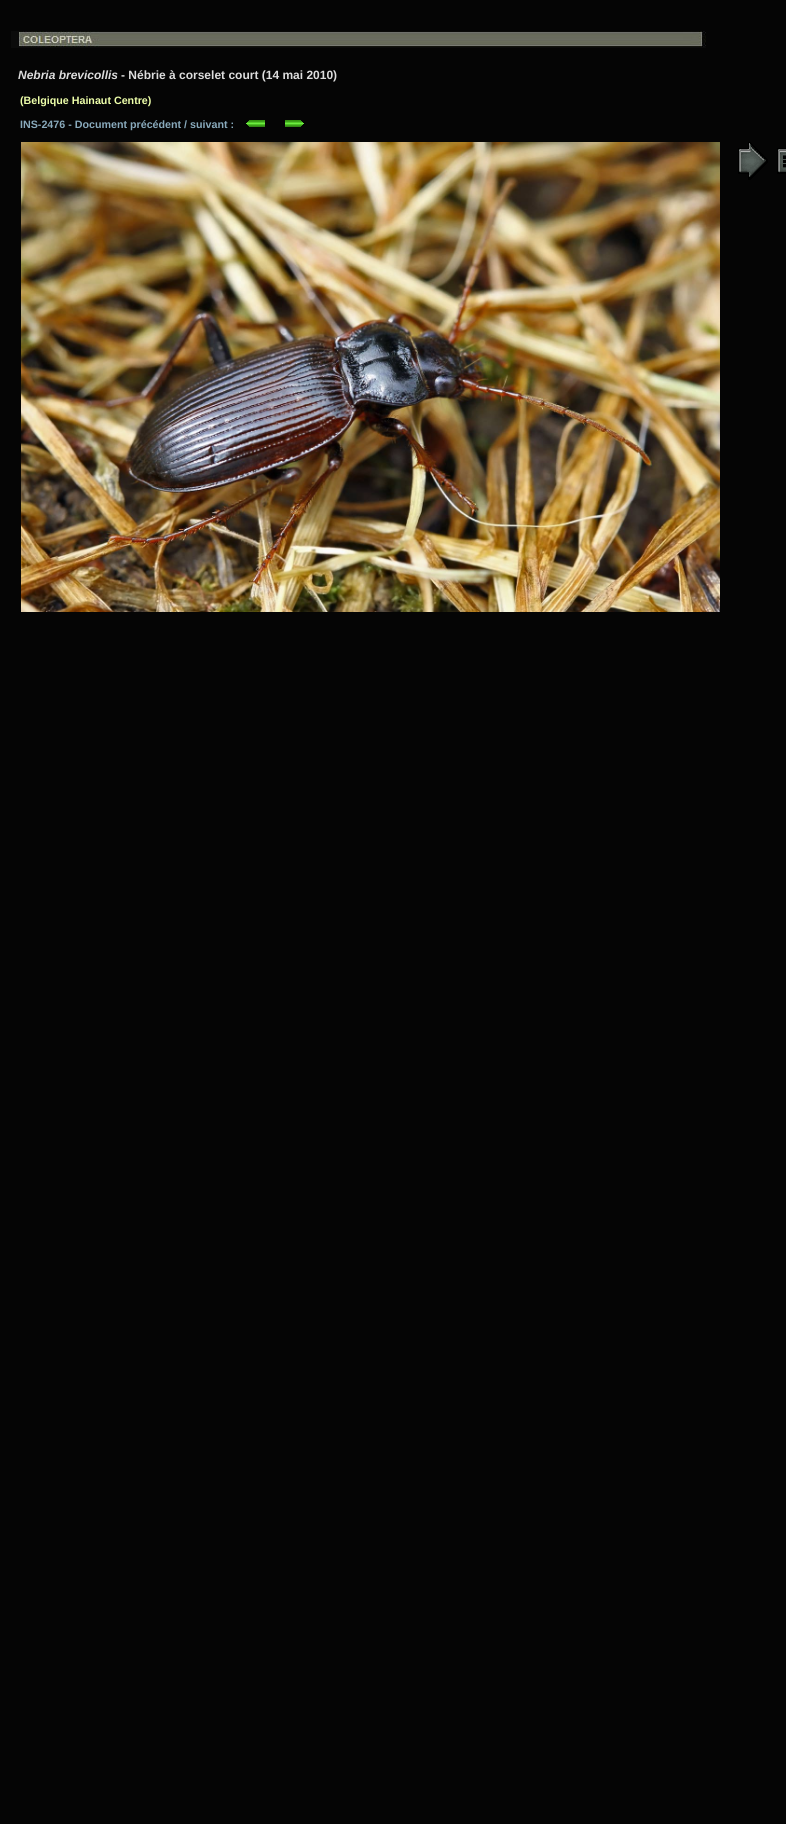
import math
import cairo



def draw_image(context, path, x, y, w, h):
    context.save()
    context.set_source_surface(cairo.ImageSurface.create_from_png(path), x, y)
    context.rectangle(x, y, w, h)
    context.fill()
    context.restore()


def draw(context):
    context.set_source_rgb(5 / 255, 5 / 255, 5 / 255)
    context.paint()
    draw_image(context, "images/1.png", 11, 31, 695, 17)
    draw_image(context, "images/2.png", 246, 120, 19, 7)
    draw_image(context, "images/3.png", 285, 120, 19, 7)
    draw_image(context, "images/4.png", 21, 142, 699, 470)
    draw_image(context, "images/5.png", 738, 142, 30, 38)
    draw_image(context, "images/6.png", 777, 148, 9, 26)
    context.select_font_face("Liberation Sans", cairo.FontSlant.ITALIC, cairo.FontWeight.BOLD)
    context.set_font_size(12)
    context.set_source_rgb(221 / 255, 221 / 255, 221 / 255)
    context.move_to(18, 79)
    context.show_text("Nebria brevicollis")
    context.select_font_face("Liberation Sans", cairo.FontSlant.NORMAL, cairo.FontWeight.BOLD)
    context.move_to(121, 79)
    context.show_text("- Nébrie à corselet court (14 mai 2010)")
    context.set_font_size(10.7)
    context.set_source_rgb(238 / 255, 1, 170 / 255)
    context.move_to(20, 104)
    context.show_text("(Belgique Hainaut Centre)")
    context.set_source_rgb(137 / 255, 170 / 255, 188 / 255)
    context.move_to(20, 128)
    context.show_text("INS-2476 - Document précédent / suivant :")


surface = cairo.ImageSurface(cairo.Format.RGB24, 786, 1824)
context = cairo.Context(surface)
options = cairo.FontOptions()
options.set_hint_metrics(cairo.HintMetrics.OFF)
options.set_hint_style(cairo.HintStyle.NONE)
context.set_font_options(options)
context.set_miter_limit(4)
draw(context)
surface.write_to_png("out.png")
